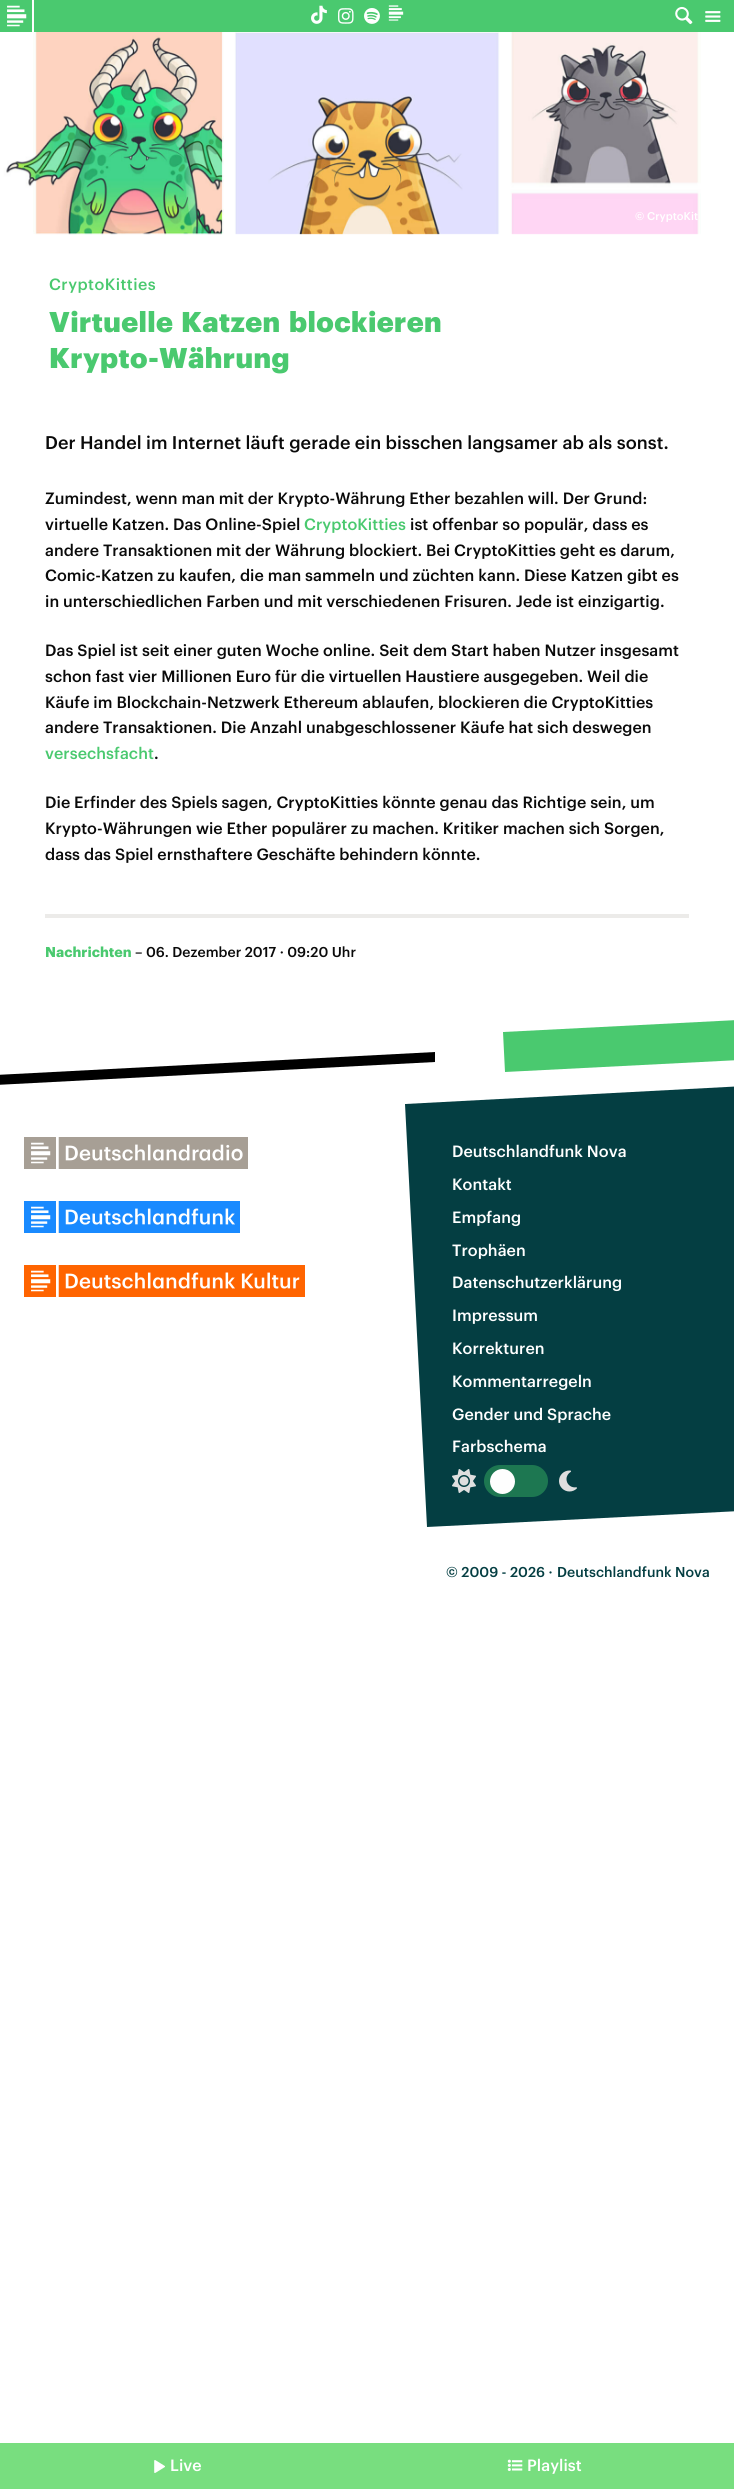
import math
import cairo



def draw_spaced(context, x, y, s, letter, word):
    context.move_to(x, y)
    for ch in s:
        context.show_text(ch)
        context.rel_move_to(letter + word * (ch == ' '), 0)


def rounded_rect(context, x, y, w, h, r):
    context.new_sub_path()
    for i, (u, v) in enumerate([(x + w - r, y + h - r), (x + r, y + h - r), (x + r, y + r), (x + w - r, y + r)]):
        context.arc(u, v, r, i * math.pi / 2, (i + 1) * math.pi / 2)
    context.close_path()


def draw_image(context, path, x, y, w, h):
    context.save()
    context.set_source_surface(cairo.ImageSurface.create_from_png(path), x, y)
    context.rectangle(x, y, w, h)
    context.fill()
    context.restore()


def draw(context):
    context.set_source_rgb(1, 1, 1)
    context.paint()
    context.set_source_rgb(74 / 255, 201 / 255, 111 / 255)
    context.rectangle(0, 0, 734, 32)
    context.fill()
    context.set_source_rgb(254 / 255, 254 / 255, 254 / 255)
    context.rectangle(32, 0, 2, 32)
    context.fill()
    draw_image(context, "images/1.png", 7, 5, 20, 22)
    draw_image(context, "images/2.png", 311, 5, 16, 19)
    draw_image(context, "images/3.png", 338, 8, 16, 16)
    draw_image(context, "images/4.png", 364, 8, 16, 16)
    draw_image(context, "images/5.png", 388, 5, 16, 16)
    draw_image(context, "images/6.png", 675, 6, 18, 19)
    draw_image(context, "images/7.png", 705, 11, 16, 11)
    draw_image(context, "images/8.png", 0, 32, 734, 203)
    context.set_source_rgb(236 / 255, 235 / 255, 233 / 255)
    context.rectangle(45, 914, 644, 4)
    context.fill()
    context.set_source_rgb(0, 0, 0)
    context.new_path()
    context.move_to(-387, 1095)
    context.line_to(435, 1052)
    context.line_to(435, 1062)
    context.line_to(-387, 1105)
    context.close_path()
    context.fill()
    draw_image(context, "images/9.png", 24, 1137, 224, 32)
    draw_image(context, "images/10.png", 24, 1201, 216, 32)
    draw_image(context, "images/11.png", 24, 1265, 281, 32)
    context.set_source_rgb(74 / 255, 201 / 255, 111 / 255)
    context.new_path()
    context.move_to(503, 1032)
    context.line_to(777, 1018)
    context.line_to(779, 1058)
    context.line_to(505, 1072)
    context.close_path()
    context.fill()
    context.set_source_rgb(4 / 255, 62 / 255, 66 / 255)
    context.new_path()
    context.move_to(405, 1104)
    context.line_to(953, 1075)
    context.line_to(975, 1499)
    context.line_to(427, 1527)
    context.close_path()
    context.fill()
    draw_image(context, "images/12.png", 452, 1469, 24, 24)
    context.set_source_rgb(29 / 255, 119 / 255, 81 / 255)
    rounded_rect(context, 484, 1465, 64, 32, 16)
    context.fill()
    context.set_source_rgb(254 / 255, 254 / 255, 254 / 255)
    context.arc(502.5, 1481.5, 12.5, 0, 2 * math.pi)
    context.fill()
    draw_image(context, "images/13.png", 559, 1470, 18, 22)
    context.set_source_rgb(120 / 255, 222 / 255, 127 / 255)
    context.rectangle(0, 2443, 734, 46)
    context.fill()
    draw_image(context, "images/14.png", 154, 2460, 11, 13)
    draw_image(context, "images/15.png", 507, 2459, 16, 12)
    context.select_font_face("Graphik Medium")
    context.set_font_size(11)
    context.set_source_rgb(1, 1, 1)
    context.move_to(635, 220)
    context.show_text("© CryptoKit")
    context.set_font_size(16)
    context.set_source_rgb(74 / 255, 201 / 255, 111 / 255)
    draw_spaced(context, 49, 290, "CryptoKitties", 0.4, 0)
    context.select_font_face("Graphik ExtraBold")
    context.set_font_size(28)
    draw_spaced(context, 49, 332, "Virtuelle", 0.4, 0)
    draw_spaced(context, 181, 332, "Katzen", 0.4, 0)
    draw_spaced(context, 289, 332, "blockieren", 0.4, 0)
    draw_spaced(context, 49, 368, "Krypto-Währung", 0.4, 0)
    context.select_font_face("Graphik Medium")
    context.set_font_size(18)
    context.set_source_rgb(10 / 255, 10 / 255, 10 / 255)
    context.move_to(45, 449)
    context.show_text("Der Handel im Internet läuft gerade ein bisschen langsamer ab als sonst.")
    context.set_font_size(16)
    context.move_to(45, 504)
    context.show_text("Zumindest, wenn man mit der Krypto-Währung Ether bezahlen will. Der Grund:")
    context.move_to(45, 530)
    context.show_text("virtuelle Katzen. Das Online-Spiel")
    context.set_source_rgb(74 / 255, 201 / 255, 111 / 255)
    context.move_to(304, 530)
    context.show_text("CryptoKitties")
    context.set_source_rgb(10 / 255, 10 / 255, 10 / 255)
    context.move_to(410, 530)
    context.show_text("ist offenbar so populär, dass es")
    context.move_to(45, 556)
    context.show_text("andere Transaktionen mit der Währung blockiert. Bei CryptoKitties geht es darum,")
    context.move_to(45, 581)
    context.show_text("Comic-Katzen zu kaufen, die man sammeln und züchten kann. Diese Katzen gibt es")
    context.move_to(45, 607)
    context.show_text("in unterschiedlichen Farben und mit verschiedenen Frisuren. Jede ist einzigartig.")
    context.move_to(45, 656)
    context.show_text("Das Spiel ist seit einer guten Woche online. Seit dem Start haben Nutzer insgesamt")
    context.move_to(45, 682)
    context.show_text("schon fast vier Millionen Euro für die virtuellen Haustiere ausgegeben. Weil die")
    context.move_to(45, 708)
    context.show_text("Käufe im Blockchain-Netzwerk Ethereum ablaufen, blockieren die CryptoKitties")
    context.move_to(45, 733)
    context.show_text("andere Transaktionen. Die Anzahl unabgeschlossener Käufe hat sich deswegen")
    context.set_source_rgb(74 / 255, 201 / 255, 111 / 255)
    context.move_to(45, 759)
    context.show_text("versechsfacht")
    context.set_source_rgb(10 / 255, 10 / 255, 10 / 255)
    context.move_to(154, 759)
    context.show_text(".")
    context.move_to(45, 808)
    context.show_text("Die Erfinder des Spiels sagen, CryptoKitties könnte genau das Richtige sein, um")
    context.move_to(45, 834)
    context.show_text("Krypto-Währungen wie Ether populärer zu machen. Kritiker machen sich Sorgen,")
    context.move_to(45, 860)
    context.show_text("dass das Spiel ernsthaftere Geschäfte behindern könnte.")
    context.select_font_face("Graphik", cairo.FontSlant.NORMAL, cairo.FontWeight.BOLD)
    context.set_font_size(14)
    context.set_source_rgb(74 / 255, 201 / 255, 111 / 255)
    context.move_to(45, 957)
    context.show_text("Nachrichten")
    context.select_font_face("Graphik Medium")
    context.set_source_rgb(10 / 255, 10 / 255, 10 / 255)
    context.move_to(135, 957)
    context.show_text("– 06. Dezember 2017 · 09:20 Uhr")
    context.set_font_size(16)
    context.set_source_rgb(1, 1, 1)
    context.move_to(452, 1157)
    context.show_text("Deutschlandfunk Nova")
    context.move_to(452, 1190)
    context.show_text("Kontakt")
    context.move_to(452, 1223)
    context.show_text("Empfang")
    context.move_to(452, 1256)
    context.show_text("Trophäen")
    context.move_to(452, 1288)
    context.show_text("Datenschutzerklärung")
    context.move_to(452, 1321)
    context.show_text("Impressum")
    context.move_to(452, 1354)
    context.show_text("Korrekturen")
    context.move_to(452, 1387)
    context.show_text("Kommentarregeln")
    context.move_to(452, 1420)
    context.show_text("Gender und Sprache")
    context.move_to(452, 1452)
    context.show_text("Farbschema")
    context.set_font_size(14)
    context.set_source_rgb(4 / 255, 62 / 255, 66 / 255)
    context.move_to(446, 1577)
    context.show_text("© 2009 - 2026 ·")
    context.move_to(557, 1577)
    context.show_text("Deutschlandfunk Nova")
    context.set_font_size(16)
    context.set_source_rgb(1, 1, 1)
    context.move_to(170, 2471)
    context.show_text("Live")
    context.move_to(527, 2471)
    context.show_text("Playlist")


surface = cairo.ImageSurface(cairo.Format.RGB24, 734, 2489)
context = cairo.Context(surface)
options = cairo.FontOptions()
options.set_hint_metrics(cairo.HintMetrics.OFF)
options.set_hint_style(cairo.HintStyle.NONE)
context.set_font_options(options)
context.set_miter_limit(4)
draw(context)
surface.write_to_png("out.png")
